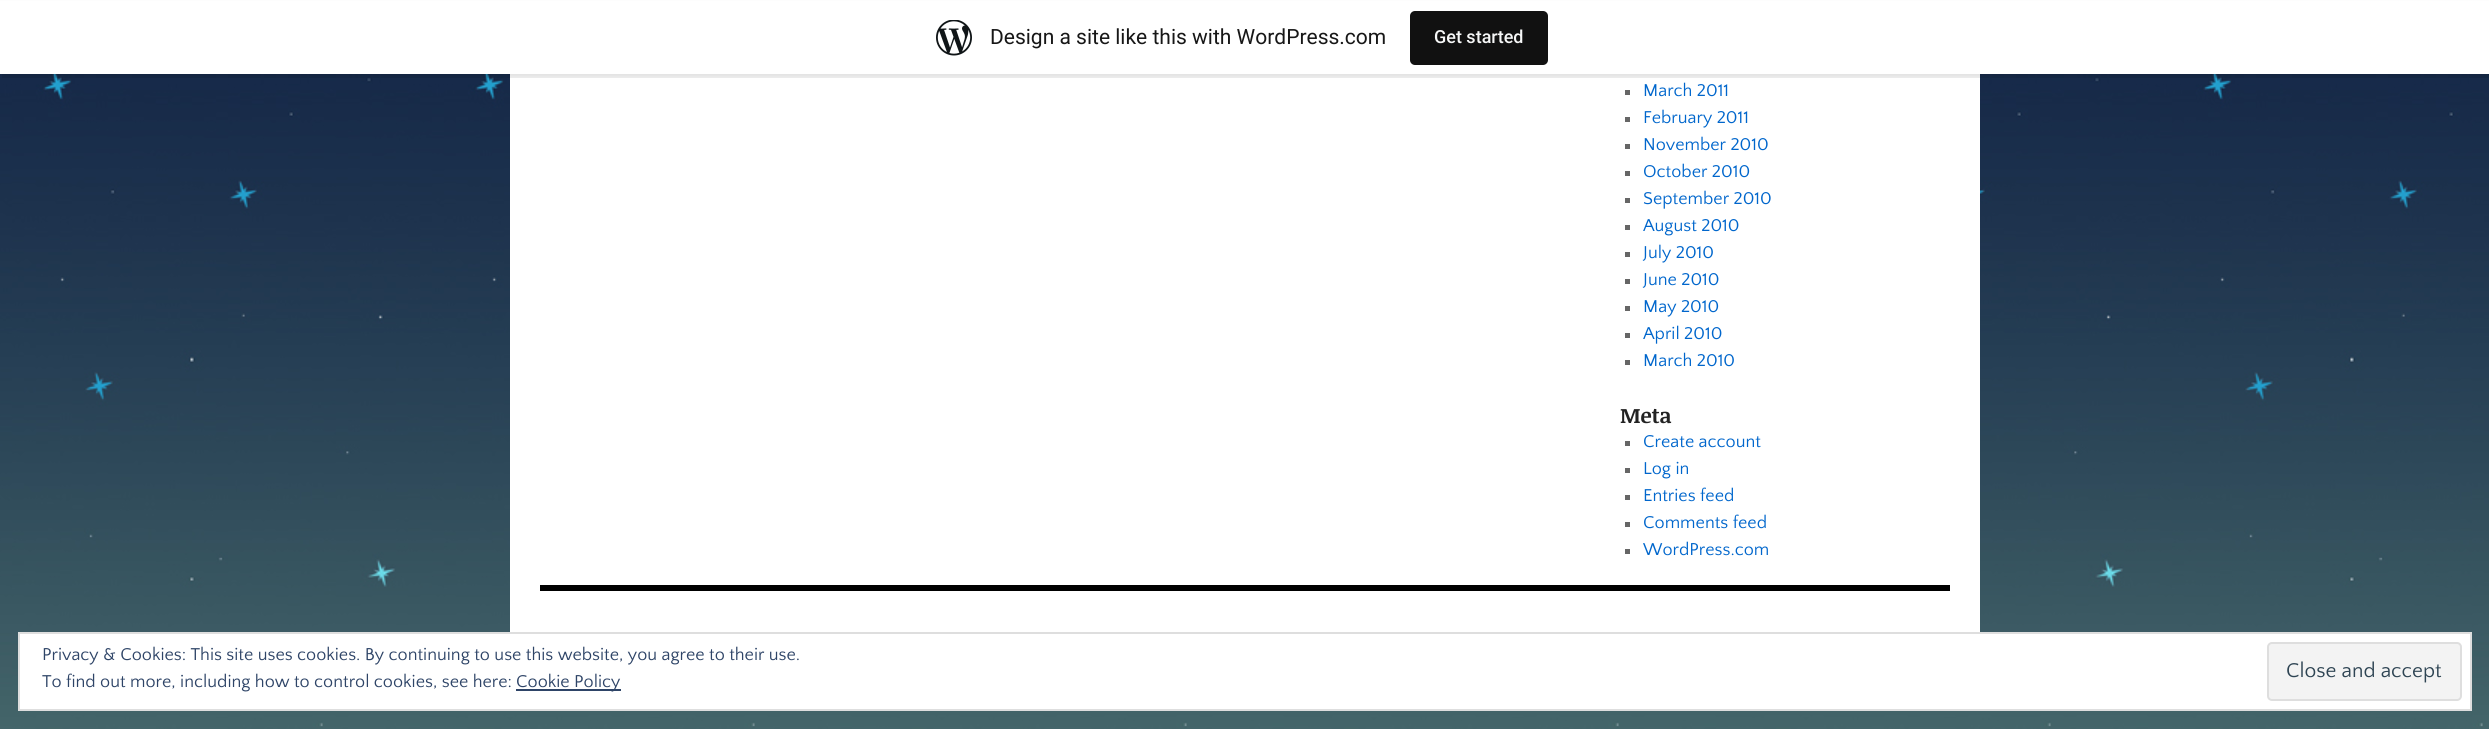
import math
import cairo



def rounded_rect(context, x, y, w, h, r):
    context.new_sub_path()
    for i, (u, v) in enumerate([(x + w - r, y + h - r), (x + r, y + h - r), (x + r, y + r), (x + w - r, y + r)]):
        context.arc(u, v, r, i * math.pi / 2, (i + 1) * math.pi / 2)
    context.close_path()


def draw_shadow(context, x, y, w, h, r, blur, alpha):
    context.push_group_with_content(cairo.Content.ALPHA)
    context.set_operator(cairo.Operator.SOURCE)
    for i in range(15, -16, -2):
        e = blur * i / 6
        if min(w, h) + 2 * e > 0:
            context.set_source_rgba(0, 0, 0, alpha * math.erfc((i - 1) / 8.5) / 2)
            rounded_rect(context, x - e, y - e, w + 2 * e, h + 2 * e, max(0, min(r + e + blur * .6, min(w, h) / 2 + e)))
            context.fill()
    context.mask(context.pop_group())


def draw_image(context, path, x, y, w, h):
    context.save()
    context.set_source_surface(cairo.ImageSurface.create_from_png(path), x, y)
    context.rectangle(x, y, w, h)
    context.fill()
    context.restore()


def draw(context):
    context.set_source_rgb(1, 1, 1)
    context.paint()
    draw_image(context, "images/1.png", 0, 74, 2489, 655)
    context.set_source_rgb(1, 1, 1)
    context.rectangle(510, 74, 1470, 558)
    context.fill()
    context.set_source_rgb(0, 0, 0)
    draw_shadow(context, 0, 2, 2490, 73, 0, 1.5, 0.05)
    context.set_source_rgba(0, 0, 0, 0.08)
    context.new_path()
    context.move_to(2, 74)
    context.line_to(2, 78)
    context.line_to(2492, 78)
    context.line_to(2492, 5)
    context.line_to(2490, 5)
    context.line_to(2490, 74)
    context.close_path()
    context.fill()
    context.set_source_rgb(1, 1, 1)
    context.rectangle(0, 1, 2489, 73)
    context.fill()
    draw_image(context, "images/2.png", 936, 20, 36, 36)
    context.set_source_rgb(17 / 255, 17 / 255, 17 / 255)
    rounded_rect(context, 1410, 11, 138, 54, 5)
    context.fill()
    context.set_source_rgb(102 / 255, 102 / 255, 102 / 255)
    context.rectangle(1625, 90, 5, 5)
    context.fill()
    context.rectangle(1625, 117, 5, 5)
    context.fill()
    context.rectangle(1625, 144, 5, 5)
    context.fill()
    context.rectangle(1625, 171, 5, 5)
    context.fill()
    context.rectangle(1625, 198, 5, 5)
    context.fill()
    context.rectangle(1625, 225, 5, 5)
    context.fill()
    context.rectangle(1625, 252, 5, 5)
    context.fill()
    context.rectangle(1625, 279, 5, 5)
    context.fill()
    context.rectangle(1625, 306, 5, 5)
    context.fill()
    context.rectangle(1625, 333, 5, 5)
    context.fill()
    context.rectangle(1625, 360, 5, 5)
    context.fill()
    context.rectangle(1625, 441, 5, 5)
    context.fill()
    context.rectangle(1625, 468, 5, 5)
    context.fill()
    context.rectangle(1625, 495, 5, 5)
    context.fill()
    context.rectangle(1625, 522, 5, 5)
    context.fill()
    context.rectangle(1625, 549, 5, 5)
    context.fill()
    context.set_source_rgb(0, 0, 0)
    context.rectangle(540, 585, 1410, 6)
    context.fill()
    context.set_source_rgb(1, 1, 1)
    context.rectangle(19, 633, 2452, 77)
    context.fill_preserve()
    context.set_source_rgb(222 / 255, 222 / 255, 222 / 255)
    context.stroke()
    context.set_source_rgb(46 / 255, 68 / 255, 103 / 255)
    context.rectangle(516, 689, 105, 2)
    context.fill()
    context.set_source_rgb(243 / 255, 243 / 255, 243 / 255)
    rounded_rect(context, 2268, 643, 193, 57, 4)
    context.fill_preserve()
    context.set_source_rgb(222 / 255, 222 / 255, 222 / 255)
    context.stroke()
    context.select_font_face("Roboto")
    context.set_font_size(21)
    context.set_source_rgb(23 / 255, 23 / 255, 23 / 255)
    context.move_to(990, 44)
    context.show_text("Design a site like this with WordPress.com")
    context.select_font_face("Roboto Medium")
    context.set_font_size(18)
    context.set_source_rgb(246 / 255, 247 / 255, 247 / 255)
    context.move_to(1434, 43)
    context.show_text("Get started")
    context.select_font_face("Quattrocento Sans")
    context.set_source_rgb(0, 102 / 255, 204 / 255)
    context.move_to(1643, 96)
    context.show_text("March 2011")
    context.move_to(1643, 123)
    context.show_text("February 2011")
    context.move_to(1643, 150)
    context.show_text("November 2010")
    context.move_to(1643, 177)
    context.show_text("October 2010")
    context.move_to(1643, 204)
    context.show_text("September 2010")
    context.move_to(1643, 231)
    context.show_text("August 2010")
    context.move_to(1643, 258)
    context.show_text("July 2010")
    context.move_to(1643, 285)
    context.show_text("June 2010")
    context.move_to(1643, 312)
    context.show_text("May 2010")
    context.move_to(1643, 339)
    context.show_text("April 2010")
    context.move_to(1643, 366)
    context.show_text("March 2010")
    context.select_font_face("Noticia Text", cairo.FontSlant.NORMAL, cairo.FontWeight.BOLD)
    context.set_font_size(21)
    context.set_source_rgb(34 / 255, 34 / 255, 34 / 255)
    context.move_to(1620, 423)
    context.show_text("Meta")
    context.select_font_face("Quattrocento Sans")
    context.set_font_size(18)
    context.set_source_rgb(0, 102 / 255, 204 / 255)
    context.move_to(1643, 447)
    context.show_text("Create account")
    context.move_to(1643, 474)
    context.show_text("Log in")
    context.move_to(1643, 501)
    context.show_text("Entries feed")
    context.move_to(1643, 528)
    context.show_text("Comments feed")
    context.move_to(1643, 555)
    context.show_text("WordPress.com")
    context.set_source_rgb(46 / 255, 68 / 255, 103 / 255)
    context.move_to(42, 660)
    context.show_text("Privacy & Cookies: This site uses cookies. By continuing to use this website, you agree to their use.")
    context.move_to(42, 687)
    context.show_text("To find out more, including how to control cookies, see here:")
    context.move_to(516, 687)
    context.show_text("Cookie Policy")
    context.set_font_size(21)
    context.set_source_rgb(46 / 255, 68 / 255, 83 / 255)
    context.move_to(2286, 677)
    context.show_text("Close and accept")


surface = cairo.ImageSurface(cairo.Format.RGB24, 2489, 729)
context = cairo.Context(surface)
options = cairo.FontOptions()
options.set_hint_metrics(cairo.HintMetrics.OFF)
options.set_hint_style(cairo.HintStyle.NONE)
context.set_font_options(options)
context.set_miter_limit(4)
draw(context)
surface.write_to_png("out.png")
